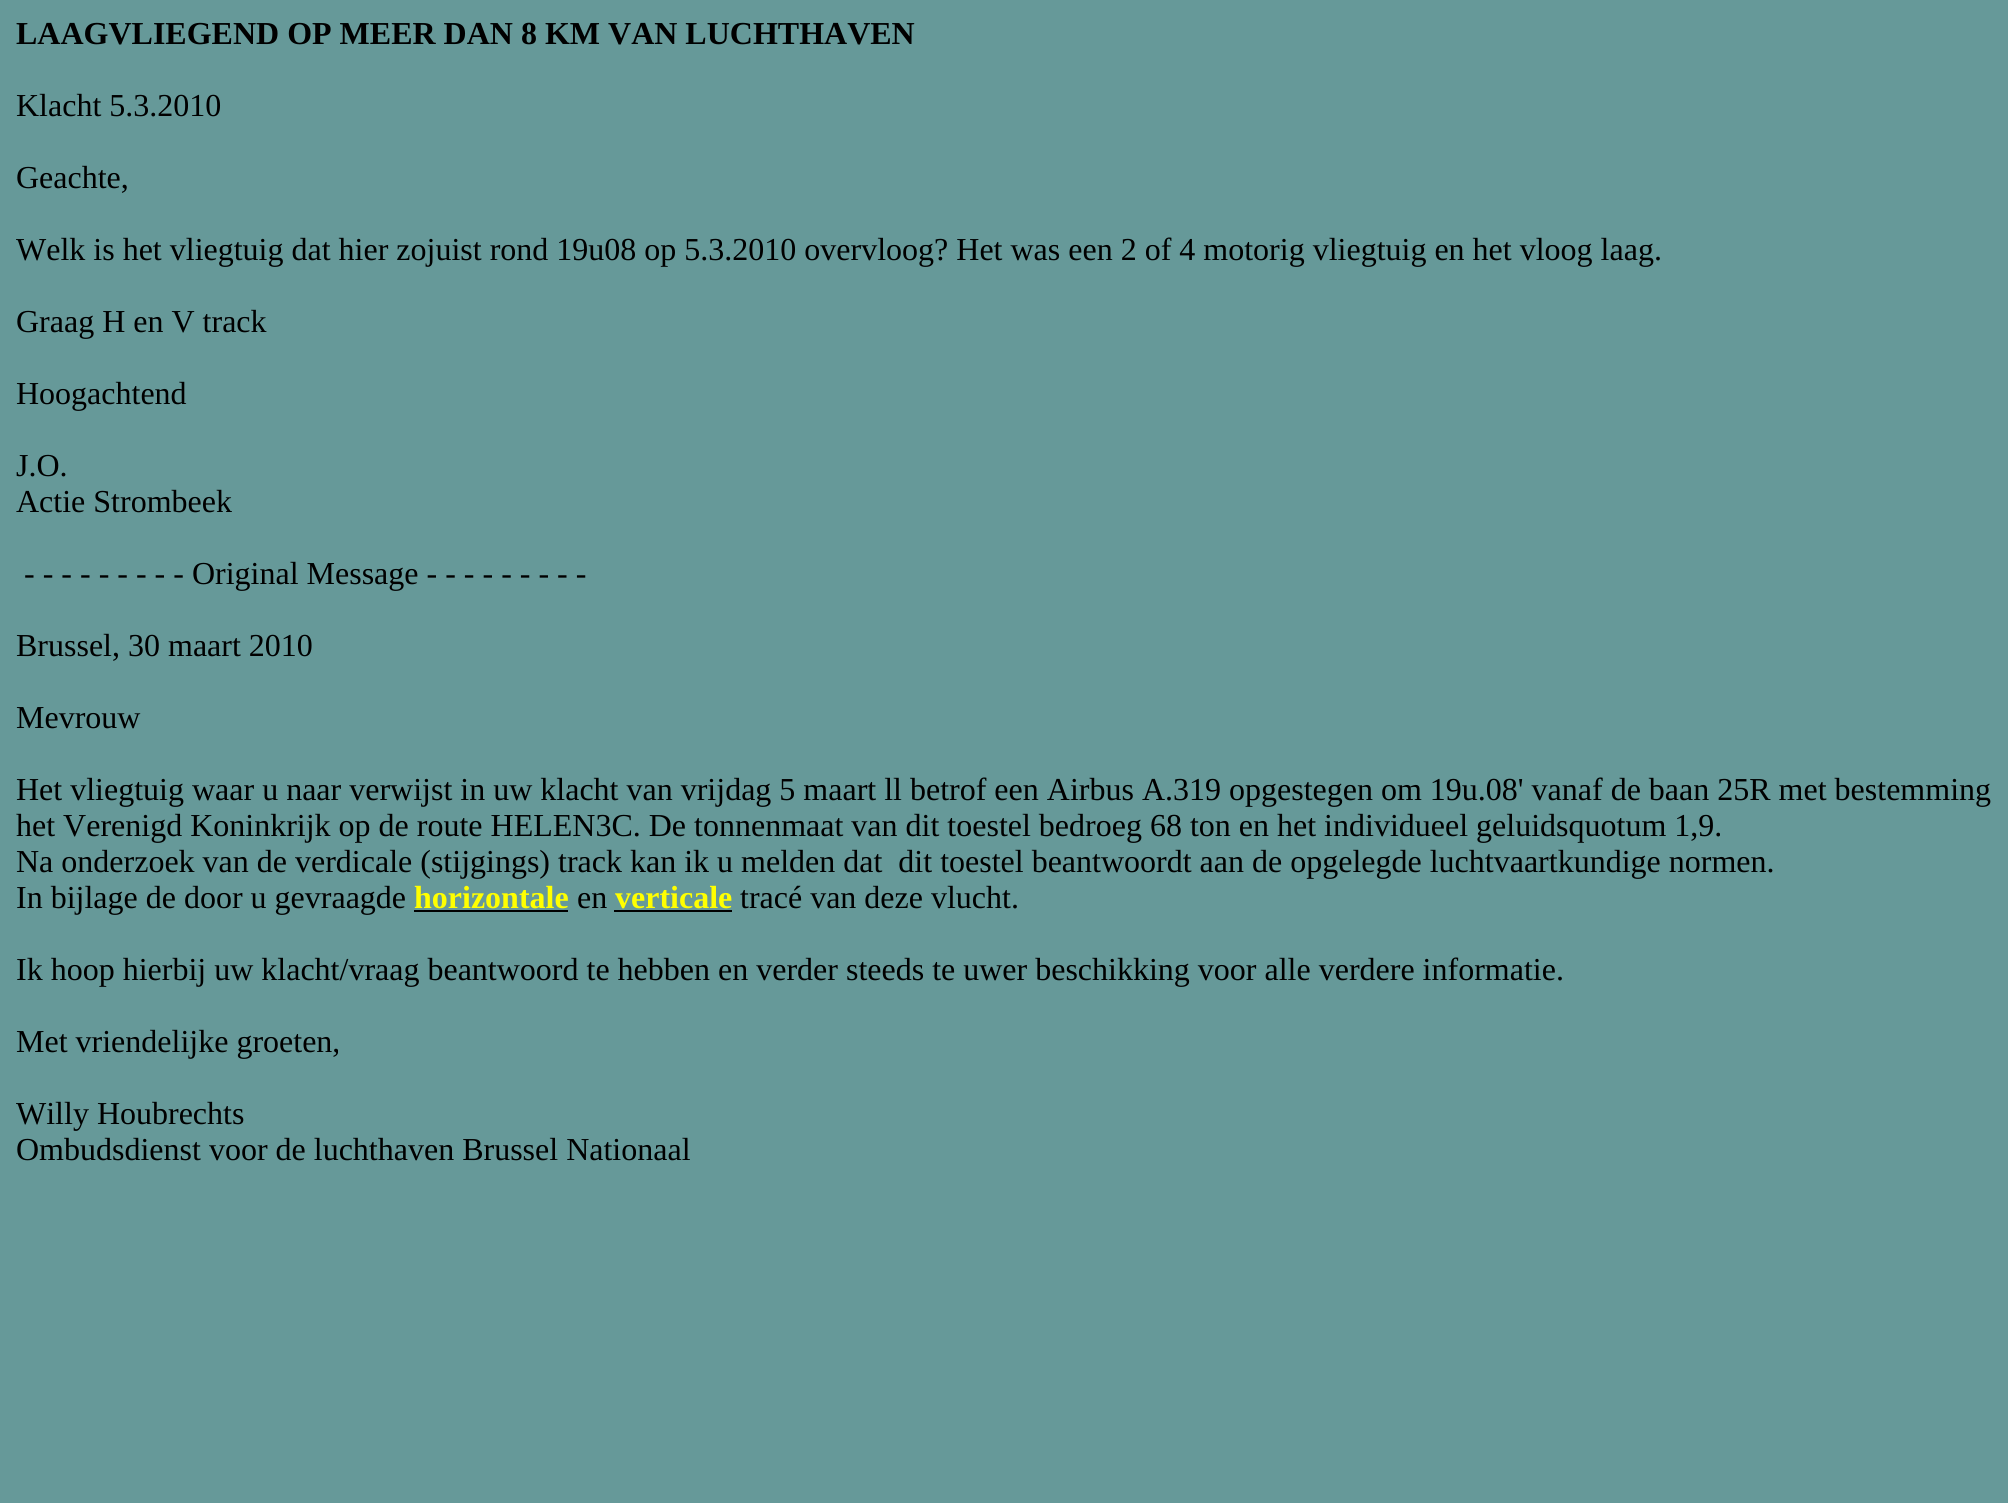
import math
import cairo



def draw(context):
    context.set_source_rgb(102 / 255, 153 / 255, 153 / 255)
    context.paint()
    context.set_source_rgb(0, 0, 0)
    context.rectangle(414, 910, 154, 2)
    context.fill()
    context.rectangle(614, 910, 118, 2)
    context.fill()
    context.select_font_face("Liberation Serif", cairo.FontSlant.NORMAL, cairo.FontWeight.BOLD)
    context.set_font_size(32)
    context.move_to(16, 44)
    context.show_text("LAAGVLIEGEND OP MEER DAN 8 KM VAN LUCHTHAVEN")
    context.select_font_face("Liberation Serif")
    context.move_to(16, 116)
    context.show_text("Klacht 5.3.2010")
    context.move_to(16, 188)
    context.show_text("Geachte,")
    context.move_to(16, 260)
    context.show_text("Welk is het vliegtuig dat hier zojuist rond 19u08 op 5.3.2010 overvloog? Het was een 2 of 4 motorig vliegtuig en het vloog laag.")
    context.move_to(16, 332)
    context.show_text("Graag H en V track")
    context.move_to(16, 404)
    context.show_text("Hoogachtend")
    context.move_to(16, 476)
    context.show_text("J.O.")
    context.move_to(16, 512)
    context.show_text("Actie Strombeek")
    context.move_to(24, 584)
    context.show_text("- - - - - - - - - Original Message - - - - - - - - -")
    context.move_to(16, 656)
    context.show_text("Brussel, 30 maart 2010")
    context.move_to(16, 728)
    context.show_text("Mevrouw")
    context.move_to(16, 800)
    context.show_text("Het vliegtuig waar u naar verwijst in uw klacht van vrijdag 5 maart ll betrof een Airbus A.319 opgestegen om 19u.08' vanaf de baan 25R met bestemming")
    context.move_to(16, 836)
    context.show_text("het Verenigd Koninkrijk op de route HELEN3C. De tonnenmaat van dit toestel bedroeg 68 ton en het individueel geluidsquotum 1,9.")
    context.move_to(16, 872)
    context.show_text("Na onderzoek van de verdicale (stijgings) track kan ik u melden dat  dit toestel beantwoordt aan de opgelegde luchtvaartkundige normen.")
    context.move_to(16, 908)
    context.show_text("In bijlage de door u gevraagde")
    context.select_font_face("Liberation Serif", cairo.FontSlant.NORMAL, cairo.FontWeight.BOLD)
    context.set_source_rgb(1, 1, 0)
    context.move_to(414, 908)
    context.show_text("horizontale")
    context.select_font_face("Liberation Serif")
    context.set_source_rgb(0, 0, 0)
    context.move_to(577, 908)
    context.show_text("en")
    context.select_font_face("Liberation Serif", cairo.FontSlant.NORMAL, cairo.FontWeight.BOLD)
    context.set_source_rgb(1, 1, 0)
    context.move_to(615, 908)
    context.show_text("verticale")
    context.select_font_face("Liberation Serif")
    context.set_source_rgb(0, 0, 0)
    context.move_to(740, 908)
    context.show_text("tracé van deze vlucht.")
    context.move_to(16, 980)
    context.show_text("Ik hoop hierbij uw klacht/vraag beantwoord te hebben en verder steeds te uwer beschikking voor alle verdere informatie.")
    context.move_to(16, 1052)
    context.show_text("Met vriendelijke groeten,")
    context.move_to(16, 1124)
    context.show_text("Willy Houbrechts")
    context.move_to(16, 1160)
    context.show_text("Ombudsdienst voor de luchthaven Brussel Nationaal")


surface = cairo.ImageSurface(cairo.Format.RGB24, 2008, 1503)
context = cairo.Context(surface)
options = cairo.FontOptions()
options.set_hint_metrics(cairo.HintMetrics.OFF)
options.set_hint_style(cairo.HintStyle.NONE)
context.set_font_options(options)
context.set_miter_limit(4)
draw(context)
surface.write_to_png("out.png")
